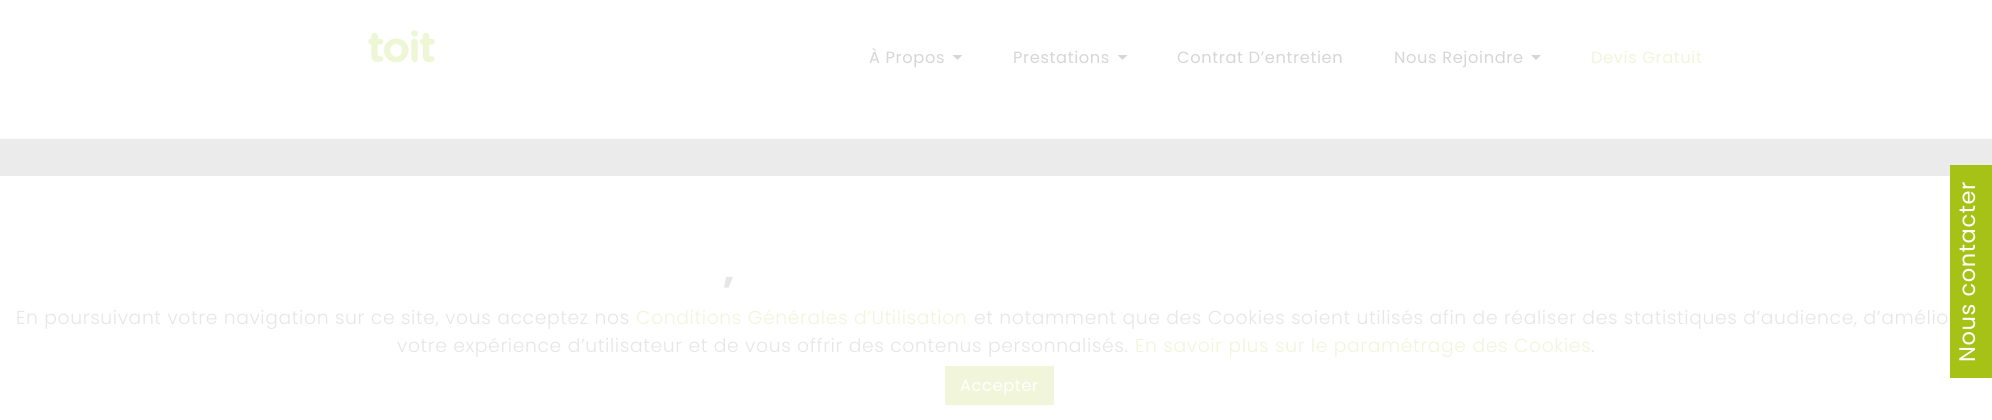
import math
import cairo



def draw_spaced(context, x, y, s, letter, word):
    context.move_to(x, y)
    for ch in s:
        context.show_text(ch)
        context.rel_move_to(letter + word * (ch == ' '), 0)


def draw_image(context, path, x, y, w, h):
    context.save()
    context.set_source_surface(cairo.ImageSurface.create_from_png(path), x, y)
    context.rectangle(x, y, w, h)
    context.fill()
    context.restore()


def draw(context):
    context.set_source_rgb(1, 1, 1)
    context.paint()
    context.set_source_rgb(252 / 255, 252 / 255, 252 / 255)
    context.rectangle(0, 138, 1992, 1)
    context.fill()
    draw_image(context, "images/1.png", 367, 30, 69, 33)
    context.set_source_rgb(214 / 255, 214 / 255, 214 / 255)
    context.new_path()
    context.move_to(952.5, 55)
    context.line_to(962.5, 55)
    context.line_to(957.5, 60)
    context.close_path()
    context.fill()
    context.new_path()
    context.move_to(1117.5, 55)
    context.line_to(1127.5, 55)
    context.line_to(1122.5, 60)
    context.close_path()
    context.fill()
    context.new_path()
    context.move_to(1531, 55)
    context.line_to(1541, 55)
    context.line_to(1536, 60)
    context.close_path()
    context.fill()
    context.set_source_rgb(235 / 255, 235 / 255, 235 / 255)
    context.rectangle(0, 139, 1992, 37)
    context.fill()
    context.set_source_rgb(167 / 255, 194 / 255, 22 / 255)
    context.rectangle(1950, 165, 42, 213)
    context.fill()
    context.set_source_rgb(241 / 255, 245 / 255, 218 / 255)
    context.rectangle(945, 366, 109, 39)
    context.fill()
    context.select_font_face("Poppins")
    context.set_font_size(16.25)
    context.set_source_rgb(214 / 255, 214 / 255, 214 / 255)
    draw_spaced(context, 869, 63, "À Propos", 0.62, 0)
    draw_spaced(context, 1013, 63, "Prestations", 0.62, 0)
    draw_spaced(context, 1177, 63, "Contrat D’entretien", 0.62, 0)
    draw_spaced(context, 1394, 63, "Nous Rejoindre", 0.62, 0)
    context.set_source_rgb(241 / 255, 245 / 255, 218 / 255)
    draw_spaced(context, 1591, 63, "Devis Gratuit", 0.62, 0)
    context.select_font_face("Poppins", cairo.FontSlant.NORMAL, cairo.FontWeight.BOLD)
    context.set_font_size(40)
    context.set_source_rgb(230 / 255, 230 / 255, 230 / 255)
    draw_spaced(context, 722, 305, "’", 0.62, 0)
    context.select_font_face("Poppins")
    context.set_font_size(22.5)
    context.set_source_rgb(1, 1, 1)
    context.save()
    context.translate(1975, 362)
    context.rotate(-90 * math.pi / 180)
    draw_spaced(context, 0, 0, "Nous contacter", 0.62, 0)
    context.restore()
    context.select_font_face("Poppins Light")
    context.set_font_size(18.75)
    context.set_source_rgb(230 / 255, 230 / 255, 230 / 255)
    draw_spaced(context, 16, 324, "En poursuivant votre navigation sur ce site, vous acceptez nos", 0.62, 0)
    context.set_source_rgb(241 / 255, 245 / 255, 218 / 255)
    draw_spaced(context, 636, 324, "Conditions Générales d’Utilisation", 0.62, 0)
    context.set_source_rgb(230 / 255, 230 / 255, 230 / 255)
    draw_spaced(context, 974, 324, "et notamment que des Cookies soient utilisés afin de réaliser des statistiques d’audience, d’amélio", 0.62, 0)
    draw_spaced(context, 397, 352, "votre expérience d’utilisateur et de vous offrir des contenus personnalisés.", 0.62, 0)
    context.set_source_rgb(241 / 255, 245 / 255, 218 / 255)
    draw_spaced(context, 1135, 352, "En savoir plus sur le paramétrage des Cookies", 0.62, 0)
    context.set_source_rgb(230 / 255, 230 / 255, 230 / 255)
    draw_spaced(context, 1591, 352, ".", 0.62, 0)
    context.select_font_face("Poppins")
    context.set_font_size(16.25)
    context.set_source_rgb(1, 1, 1)
    draw_spaced(context, 960, 391, "Accepter", 0.62, 0)


surface = cairo.ImageSurface(cairo.Format.RGB24, 1992, 420)
context = cairo.Context(surface)
options = cairo.FontOptions()
options.set_hint_metrics(cairo.HintMetrics.OFF)
options.set_hint_style(cairo.HintStyle.NONE)
context.set_font_options(options)
context.set_miter_limit(4)
draw(context)
surface.write_to_png("out.png")
